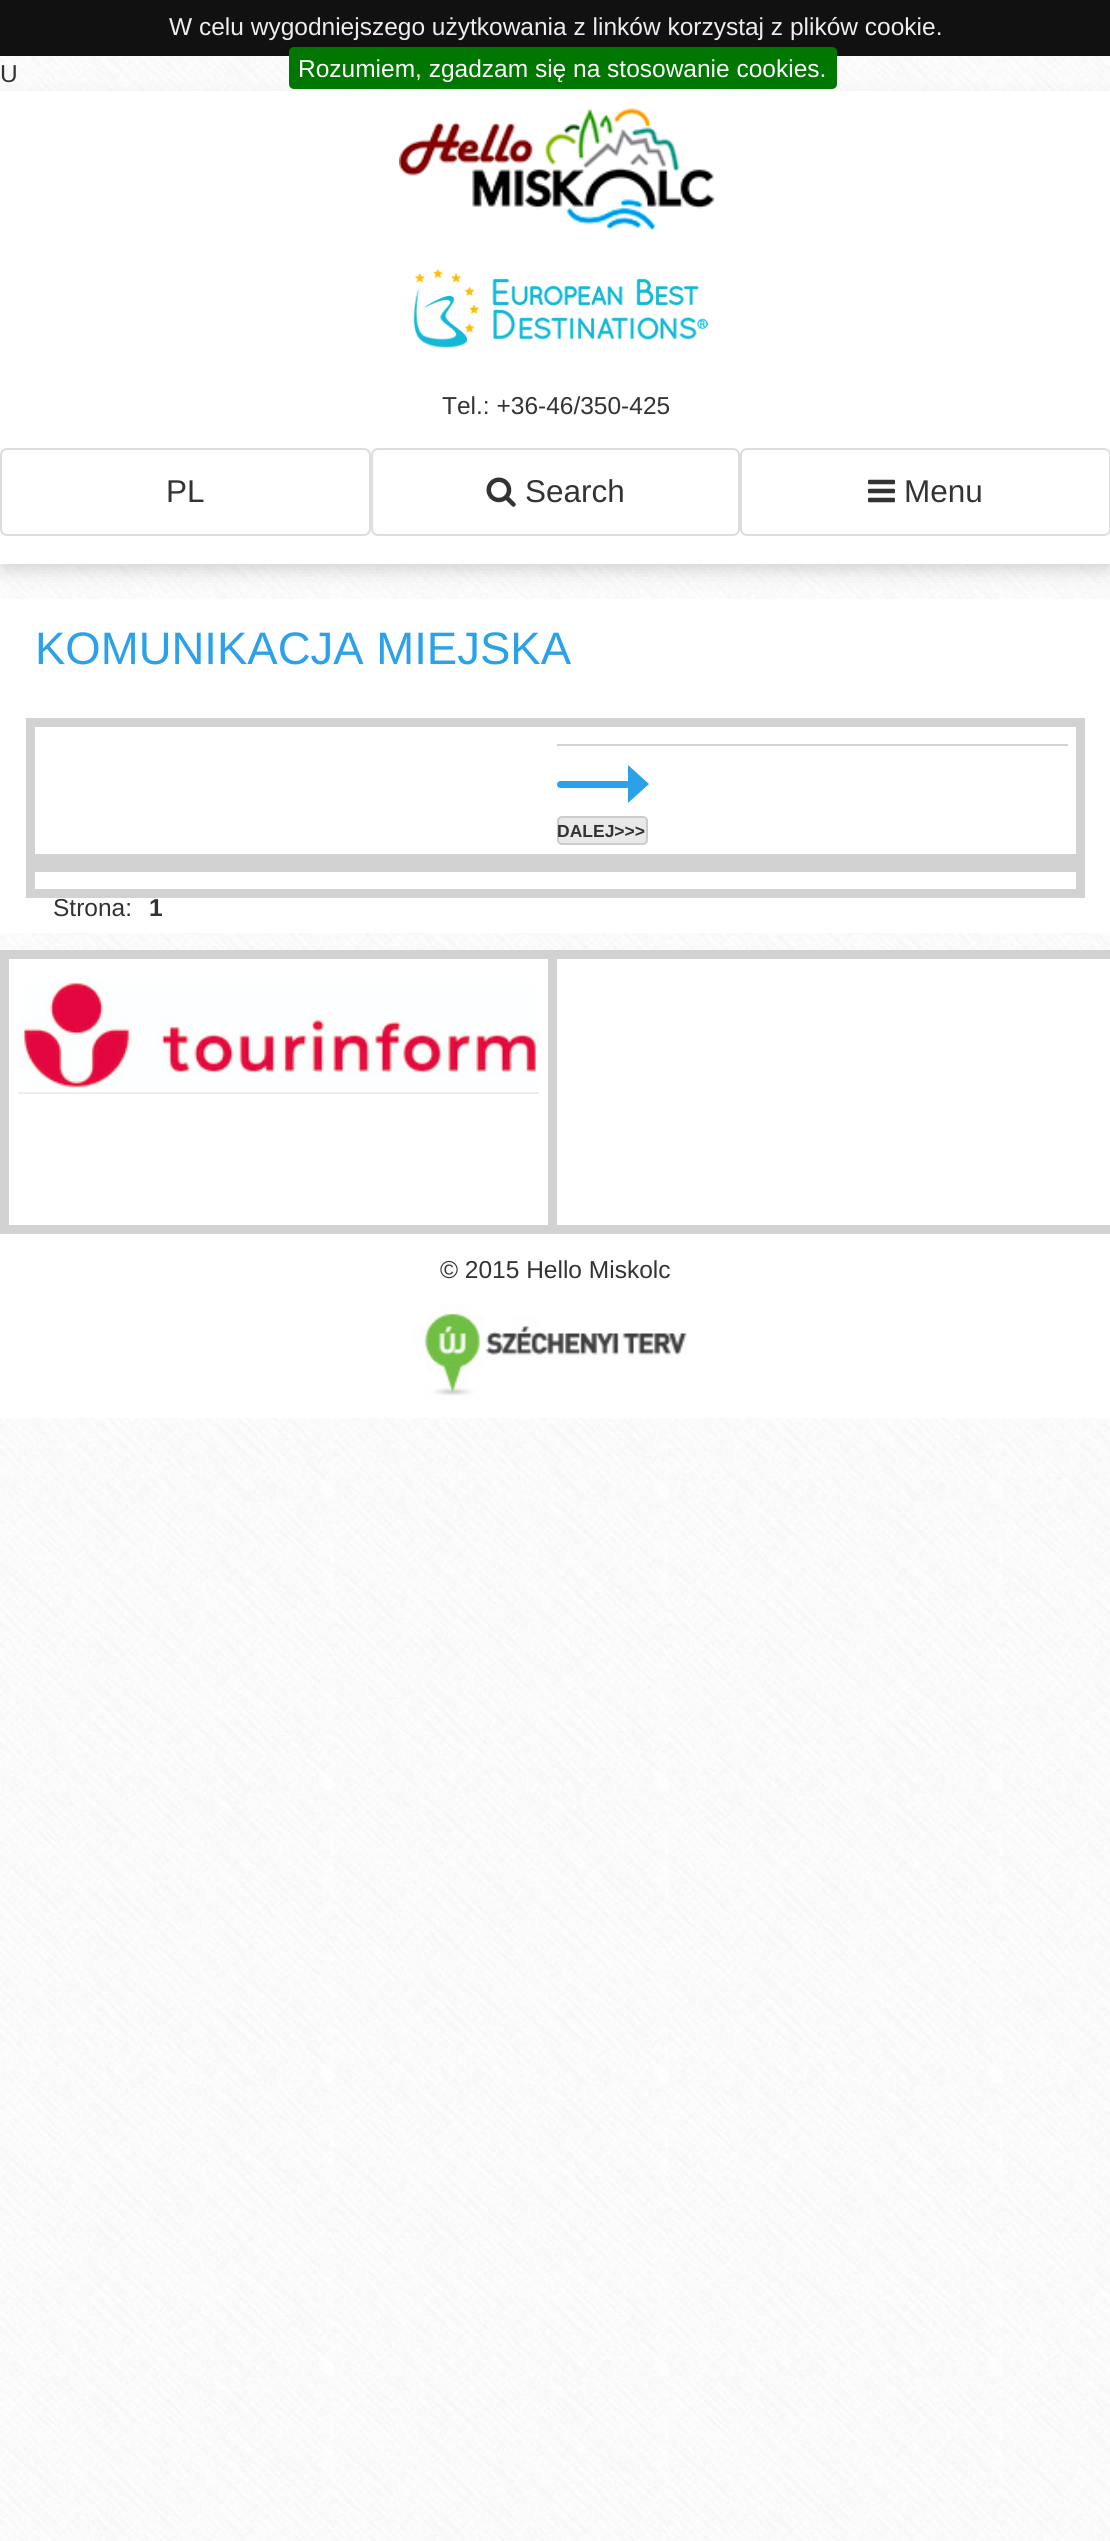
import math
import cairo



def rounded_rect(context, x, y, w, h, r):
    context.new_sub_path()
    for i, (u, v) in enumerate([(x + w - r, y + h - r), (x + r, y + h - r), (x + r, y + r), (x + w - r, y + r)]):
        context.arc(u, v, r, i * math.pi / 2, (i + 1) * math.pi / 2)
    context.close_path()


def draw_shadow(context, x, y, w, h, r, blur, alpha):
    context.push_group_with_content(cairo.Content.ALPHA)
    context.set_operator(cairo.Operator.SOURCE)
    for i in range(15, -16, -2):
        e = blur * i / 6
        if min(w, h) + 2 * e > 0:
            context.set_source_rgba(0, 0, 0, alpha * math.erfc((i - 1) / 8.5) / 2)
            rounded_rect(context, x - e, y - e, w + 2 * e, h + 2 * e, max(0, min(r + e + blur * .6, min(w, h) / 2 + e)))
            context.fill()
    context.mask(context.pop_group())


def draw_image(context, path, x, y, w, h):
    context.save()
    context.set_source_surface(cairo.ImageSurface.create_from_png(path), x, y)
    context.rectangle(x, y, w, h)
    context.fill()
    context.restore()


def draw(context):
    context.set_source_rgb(1, 1, 1)
    context.paint()
    draw_image(context, "images/1.png", 0, 56, 1110, 2485)
    context.set_source_rgb(17 / 255, 17 / 255, 17 / 255)
    context.rectangle(0, 0, 1110, 56)
    context.fill()
    context.set_source_rgb(50 / 255, 50 / 255, 50 / 255)
    draw_shadow(context, 4, 103, 1104, 466, 0, 9.5, 0.22)
    context.set_source_rgb(0, 119 / 255, 0)
    rounded_rect(context, 289, 47, 548, 42, 5)
    context.fill()
    context.set_source_rgb(1, 1, 1)
    context.rectangle(0, 91, 1110, 473)
    context.fill()
    draw_image(context, "images/2.png", 399, 108, 315, 122)
    draw_image(context, "images/3.png", 413, 268, 296, 80)
    rounded_rect(context, 1, 449, 369, 86, 6)
    context.set_source_rgb(221 / 255, 221 / 255, 221 / 255)
    context.stroke()
    rounded_rect(context, 372, 449, 367, 86, 6)
    context.stroke()
    draw_image(context, "images/4.png", 486, 477, 30, 30)
    rounded_rect(context, 741, 449, 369, 86, 6)
    context.stroke()
    draw_image(context, "images/5.png", 868, 479, 27, 24)
    context.set_source_rgb(1, 1, 1)
    context.rectangle(0, 599, 1110, 334)
    context.fill()
    context.rectangle(30.5, 722.5, 1050, 136)
    context.set_source_rgb(210 / 255, 210 / 255, 210 / 255)
    context.set_line_width(9)
    context.stroke()
    context.set_source_rgb(211 / 255, 211 / 255, 211 / 255)
    context.rectangle(557, 744, 511, 2)
    context.fill()
    context.set_source_rgb(43 / 255, 161 / 255, 233 / 255)
    rounded_rect(context, 557, 781, 73, 7, 3.5)
    context.fill()
    context.new_path()
    context.move_to(628, 803)
    context.line_to(628, 765)
    context.line_to(649, 784)
    context.close_path()
    context.fill()
    context.set_source_rgb(233 / 255, 233 / 255, 233 / 255)
    rounded_rect(context, 558, 817, 89, 27, 4)
    context.fill_preserve()
    context.set_source_rgb(204 / 255, 204 / 255, 204 / 255)
    context.set_line_width(2)
    context.stroke()
    context.rectangle(30.5, 867.5, 1050, 26)
    context.set_source_rgb(210 / 255, 210 / 255, 210 / 255)
    context.set_line_width(9)
    context.stroke()
    context.set_source_rgb(1, 1, 1)
    context.rectangle(0, 959, 1110, 459)
    context.fill()
    context.set_source_rgb(210 / 255, 210 / 255, 210 / 255)
    context.rectangle(0, 950, 1110, 9)
    context.fill()
    context.rectangle(0, 1225, 1110, 9)
    context.fill()
    context.rectangle(548, 959, 9, 266)
    context.fill()
    context.rectangle(0, 959, 9, 266)
    context.fill()
    draw_image(context, "images/6.png", 21, 982, 518, 106)
    context.set_source_rgb(238 / 255, 238 / 255, 238 / 255)
    context.rectangle(18, 1092, 521, 2)
    context.fill()
    draw_image(context, "images/7.png", 413, 1303, 274, 97)
    context.select_font_face("Arimo")
    context.set_font_size(24.5)
    context.set_source_rgb(51 / 255, 51 / 255, 51 / 255)
    context.move_to(0, 82)
    context.show_text("U")
    context.set_source_rgb(238 / 255, 238 / 255, 238 / 255)
    context.move_to(169, 35)
    context.show_text("W celu wygodniejszego użytkowania z linków korzystaj z plików cookie.")
    context.set_source_rgb(1, 1, 1)
    context.move_to(298, 77)
    context.show_text("Rozumiem, zgadzam się na stosowanie cookies.")
    context.set_source_rgb(51 / 255, 51 / 255, 51 / 255)
    context.move_to(442, 414)
    context.show_text("Tel.: +36-46/350-425")
    context.set_font_size(31.5)
    context.move_to(166, 502)
    context.show_text("PL")
    context.move_to(525, 502)
    context.show_text("Search")
    context.move_to(904, 502)
    context.show_text("Menu")
    context.set_font_size(45.5)
    context.set_source_rgb(43 / 255, 161 / 255, 233 / 255)
    context.move_to(35, 664)
    context.show_text("KOMUNIKACJA MIEJSKA")
    context.select_font_face("Arimo", cairo.FontSlant.NORMAL, cairo.FontWeight.BOLD)
    context.set_font_size(17.5)
    context.set_source_rgb(51 / 255, 51 / 255, 51 / 255)
    context.move_to(557, 837)
    context.show_text("DALEJ>>>")
    context.select_font_face("Arimo")
    context.set_font_size(24.5)
    context.move_to(53, 916)
    context.show_text("Strona:")
    context.select_font_face("Arimo", cairo.FontSlant.NORMAL, cairo.FontWeight.BOLD)
    context.move_to(149, 916)
    context.show_text("1")
    context.select_font_face("Arimo")
    context.move_to(440, 1278)
    context.show_text("© 2015 Hello Miskolc")


surface = cairo.ImageSurface(cairo.Format.RGB24, 1110, 2541)
context = cairo.Context(surface)
options = cairo.FontOptions()
options.set_hint_metrics(cairo.HintMetrics.OFF)
options.set_hint_style(cairo.HintStyle.NONE)
context.set_font_options(options)
context.set_miter_limit(4)
draw(context)
surface.write_to_png("out.png")
